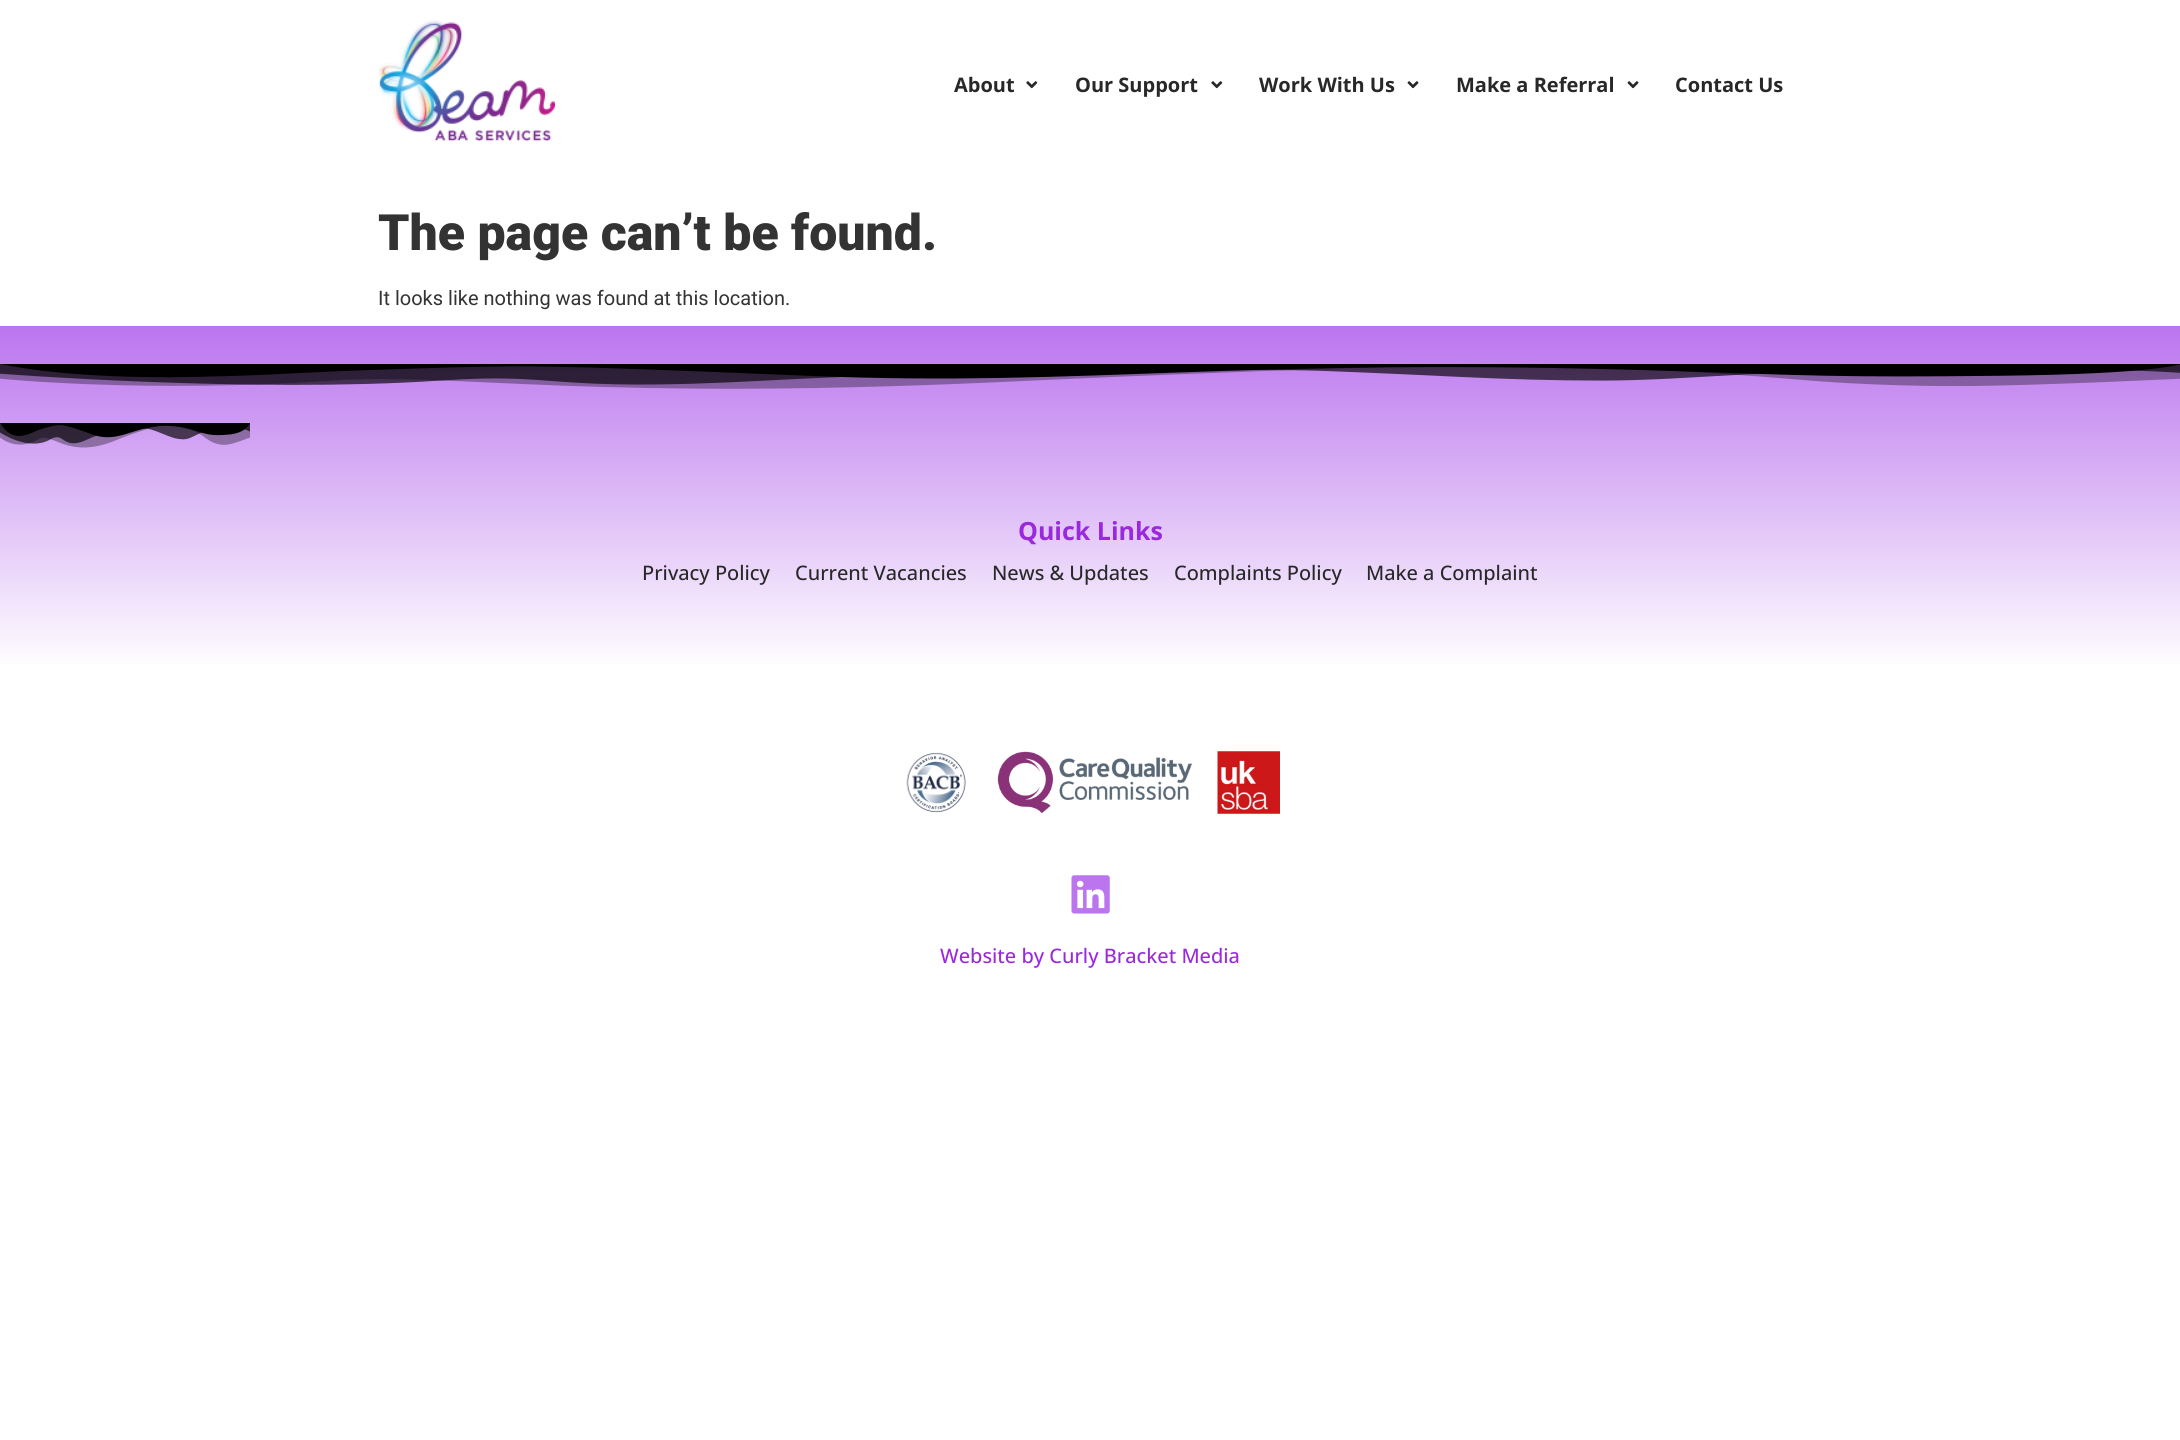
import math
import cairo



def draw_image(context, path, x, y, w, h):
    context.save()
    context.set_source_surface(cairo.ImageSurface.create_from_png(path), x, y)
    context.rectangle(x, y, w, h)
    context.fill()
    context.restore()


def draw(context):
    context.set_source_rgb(1, 1, 1)
    context.paint()
    draw_image(context, "images/1.png", 378, 20, 177, 122)
    draw_image(context, "images/2.png", 1026, 81, 12, 8)
    draw_image(context, "images/2.png", 1211, 81, 12, 8)
    draw_image(context, "images/3.png", 1407, 81, 12, 8)
    draw_image(context, "images/3.png", 1627, 81, 12, 8)
    gradient = cairo.LinearGradient(1090, 326, 1090, 670)
    gradient.add_color_stop_rgba(0, 187 / 255, 117 / 255, 238 / 255, 1)
    gradient.add_color_stop_rgba(1, 1, 1, 1, 1)
    context.set_source(gradient)
    context.rectangle(0, 326, 2180, 338)
    context.fill()
    draw_image(context, "images/4.png", 0, 364, 2180, 25)
    draw_image(context, "images/5.png", 0, 423, 250, 25)
    draw_image(context, "images/6.png", 906, 752, 60, 61)
    draw_image(context, "images/7.png", 997, 751, 195, 62)
    draw_image(context, "images/8.png", 1217, 751, 63, 63)
    draw_image(context, "images/9.png", 1071, 875, 39, 39)
    context.select_font_face("Open Sans", cairo.FontSlant.NORMAL, cairo.FontWeight.BOLD)
    context.set_font_size(20)
    context.set_source_rgb(40 / 255, 40 / 255, 40 / 255)
    context.move_to(954, 92)
    context.show_text("About")
    context.move_to(1075, 92)
    context.show_text("Our Support")
    context.move_to(1259, 92)
    context.show_text("Work With Us")
    context.move_to(1456, 92)
    context.show_text("Make a Referral")
    context.move_to(1675, 92)
    context.show_text("Contact Us")
    context.select_font_face("Roboto Black")
    context.set_font_size(50)
    context.set_source_rgb(51 / 255, 51 / 255, 51 / 255)
    context.move_to(378, 250)
    context.show_text("The page can’t be found.")
    context.select_font_face("Roboto")
    context.set_font_size(20)
    context.move_to(378, 305)
    context.show_text("It looks like nothing was found at this location.")
    context.select_font_face("Open Sans", cairo.FontSlant.NORMAL, cairo.FontWeight.BOLD)
    context.set_font_size(25)
    context.set_source_rgb(154 / 255, 41 / 255, 222 / 255)
    context.move_to(1018, 540)
    context.show_text("Quick Links")
    context.select_font_face("Open Sans Medium")
    context.set_font_size(20)
    context.set_source_rgb(40 / 255, 40 / 255, 40 / 255)
    context.move_to(642, 580)
    context.show_text("Privacy Policy")
    context.move_to(795, 580)
    context.show_text("Current Vacancies")
    context.move_to(992, 580)
    context.show_text("News & Updates")
    context.move_to(1174, 580)
    context.show_text("Complaints Policy")
    context.move_to(1366, 580)
    context.show_text("Make a Complaint")
    context.set_source_rgb(154 / 255, 41 / 255, 222 / 255)
    context.move_to(940, 963)
    context.show_text("Website by Curly Bracket Media")


surface = cairo.ImageSurface(cairo.Format.RGB24, 2180, 1440)
context = cairo.Context(surface)
options = cairo.FontOptions()
options.set_hint_metrics(cairo.HintMetrics.OFF)
options.set_hint_style(cairo.HintStyle.NONE)
context.set_font_options(options)
context.set_miter_limit(4)
draw(context)
surface.write_to_png("out.png")
